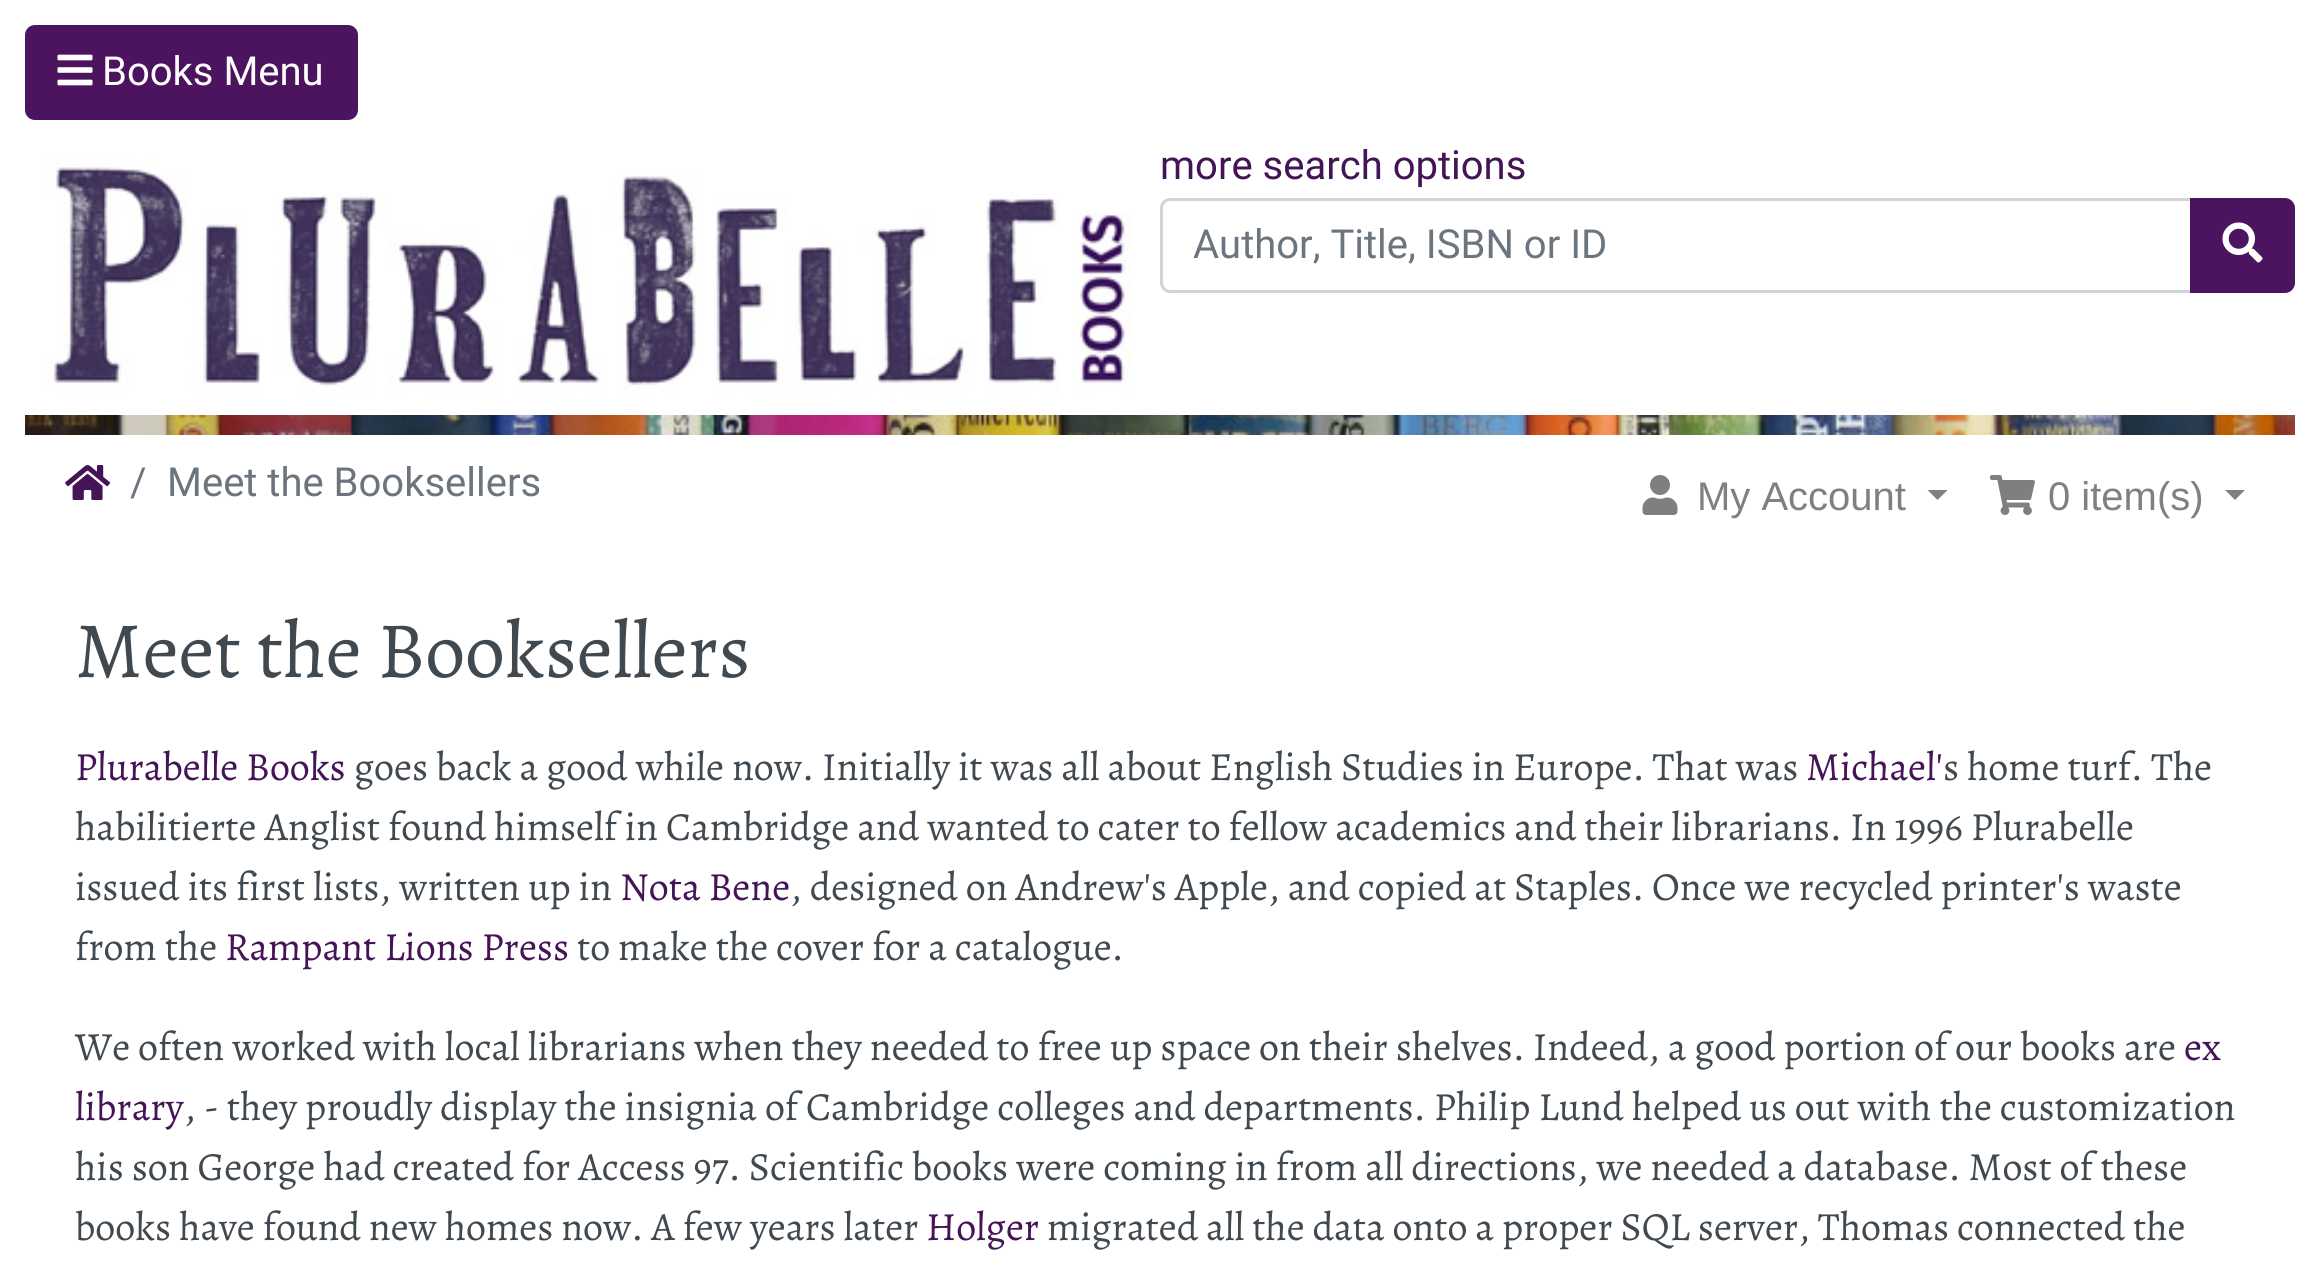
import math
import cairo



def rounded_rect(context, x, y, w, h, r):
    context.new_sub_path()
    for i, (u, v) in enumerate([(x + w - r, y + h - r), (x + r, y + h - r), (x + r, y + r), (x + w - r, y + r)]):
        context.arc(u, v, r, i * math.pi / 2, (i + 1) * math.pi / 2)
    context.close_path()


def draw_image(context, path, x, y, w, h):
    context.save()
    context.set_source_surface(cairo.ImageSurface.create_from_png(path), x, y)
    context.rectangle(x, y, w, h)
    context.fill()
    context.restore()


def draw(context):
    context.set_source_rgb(1, 1, 1)
    context.paint()
    context.set_source_rgb(76 / 255, 20 / 255, 94 / 255)
    rounded_rect(context, 26.5, 26.5, 330, 92, 8.5)
    context.fill_preserve()
    context.set_line_width(3)
    context.stroke()
    draw_image(context, "images/1.png", 57, 54, 36, 32)
    draw_image(context, "images/2.png", 46, 159, 1087, 234)
    context.new_path()
    context.move_to(1170, 199.5)
    context.line_to(2191.5, 199.5)
    context.line_to(2191.5, 291.5)
    context.line_to(1170, 291.5)
    context.curve_to(1165.5, 291.5, 1161.5, 287.5, 1161.5, 283)
    context.line_to(1161.5, 208)
    context.curve_to(1161.5, 203.5, 1165.5, 199.5, 1170, 199.5)
    context.close_path()
    context.set_source_rgb(206 / 255, 212 / 255, 218 / 255)
    context.stroke()
    context.set_source_rgb(76 / 255, 20 / 255, 94 / 255)
    context.new_path()
    context.move_to(2191.5, 199.5)
    context.line_to(2285, 199.5)
    context.curve_to(2289.5, 199.5, 2293.5, 203.5, 2293.5, 208)
    context.line_to(2293.5, 283)
    context.curve_to(2293.5, 287.5, 2289.5, 291.5, 2285, 291.5)
    context.line_to(2191.5, 291.5)
    context.close_path()
    context.fill_preserve()
    context.stroke()
    draw_image(context, "images/3.png", 2222, 222, 41, 41)
    draw_image(context, "images/4.png", 25, 415, 2270, 20)
    draw_image(context, "images/5.png", 65, 465, 46, 35)
    draw_image(context, "images/6.png", 1642, 475, 36, 40)
    context.set_source_rgb(128 / 255, 128 / 255, 128 / 255)
    context.new_path()
    context.move_to(1927.5, 490)
    context.line_to(1947.5, 490)
    context.line_to(1937.5, 500)
    context.close_path()
    context.fill()
    draw_image(context, "images/7.png", 1990, 475, 45, 40)
    context.new_path()
    context.move_to(2225, 490)
    context.line_to(2245, 490)
    context.line_to(2235, 500)
    context.close_path()
    context.fill()
    context.select_font_face("Roboto")
    context.set_font_size(40)
    context.set_source_rgb(1, 1, 1)
    context.move_to(102, 85)
    context.show_text("Books Menu")
    context.set_source_rgb(69 / 255, 20 / 255, 87 / 255)
    context.move_to(1160, 179)
    context.show_text("more search options")
    context.set_source_rgb(108 / 255, 117 / 255, 125 / 255)
    context.move_to(1193, 258)
    context.show_text("Author, Title, ISBN or ID")
    context.move_to(130, 496)
    context.show_text("/")
    context.move_to(167, 496)
    context.show_text("Meet the Booksellers")
    context.select_font_face("Liberation Sans")
    context.set_source_rgb(128 / 255, 128 / 255, 128 / 255)
    context.move_to(1697, 510)
    context.show_text("My Account")
    context.move_to(2048, 510)
    context.show_text("0 item(s)")
    context.select_font_face("Alegreya")
    context.set_font_size(80)
    context.set_source_rgb(64 / 255, 72 / 255, 80 / 255)
    context.move_to(75, 677)
    context.show_text("Meet the Booksellers")
    context.set_font_size(40)
    context.set_source_rgb(69 / 255, 20 / 255, 87 / 255)
    context.move_to(75, 780)
    context.show_text("Plurabelle Books")
    context.set_source_rgb(64 / 255, 72 / 255, 80 / 255)
    context.move_to(354, 780)
    context.show_text("goes back a good while now. Initially it was all about English Studies in Europe. That was")
    context.set_source_rgb(69 / 255, 20 / 255, 87 / 255)
    context.move_to(1806, 780)
    context.show_text("Michael'")
    context.set_source_rgb(64 / 255, 72 / 255, 80 / 255)
    context.move_to(1943, 780)
    context.show_text("s home turf. The")
    context.move_to(75, 840)
    context.show_text("habilitierte Anglist found himself in Cambridge and wanted to cater to fellow academics and their librarians. In 1996 Plurabelle")
    context.move_to(75, 900)
    context.show_text("issued its first lists, written up in")
    context.set_source_rgb(69 / 255, 20 / 255, 87 / 255)
    context.move_to(620, 900)
    context.show_text("Nota Bene")
    context.set_source_rgb(64 / 255, 72 / 255, 80 / 255)
    context.move_to(790, 900)
    context.show_text(", designed on Andrew's Apple, and copied at Staples. Once we recycled printer's waste")
    context.move_to(75, 960)
    context.show_text("from the")
    context.set_source_rgb(69 / 255, 20 / 255, 87 / 255)
    context.move_to(225, 960)
    context.show_text("Rampant Lions Press")
    context.set_source_rgb(64 / 255, 72 / 255, 80 / 255)
    context.move_to(577, 960)
    context.show_text("to make the cover for a catalogue.")
    context.move_to(75, 1060)
    context.show_text("We often worked with local librarians when they needed to free up space on their shelves. Indeed, a good portion of our books are")
    context.set_source_rgb(69 / 255, 20 / 255, 87 / 255)
    context.move_to(2184, 1060)
    context.show_text("ex")
    context.move_to(75, 1120)
    context.show_text("library")
    context.set_source_rgb(64 / 255, 72 / 255, 80 / 255)
    context.move_to(184, 1120)
    context.show_text(", - they proudly display the insignia of Cambridge colleges and departments. Philip Lund helped us out with the customization")
    context.move_to(75, 1180)
    context.show_text("his son George had created for Access 97. Scientific books were coming in from all directions, we needed a database. Most of these")
    context.move_to(75, 1240)
    context.show_text("books have found new homes now. A few years later")
    context.set_source_rgb(69 / 255, 20 / 255, 87 / 255)
    context.move_to(926, 1240)
    context.show_text("Holger")
    context.set_source_rgb(64 / 255, 72 / 255, 80 / 255)
    context.move_to(1047, 1240)
    context.show_text("migrated all the data onto a proper SQL server, Thomas connected the")


surface = cairo.ImageSurface(cairo.Format.RGB24, 2319, 1266)
context = cairo.Context(surface)
options = cairo.FontOptions()
options.set_hint_metrics(cairo.HintMetrics.OFF)
options.set_hint_style(cairo.HintStyle.NONE)
context.set_font_options(options)
context.set_miter_limit(4)
draw(context)
surface.write_to_png("out.png")
